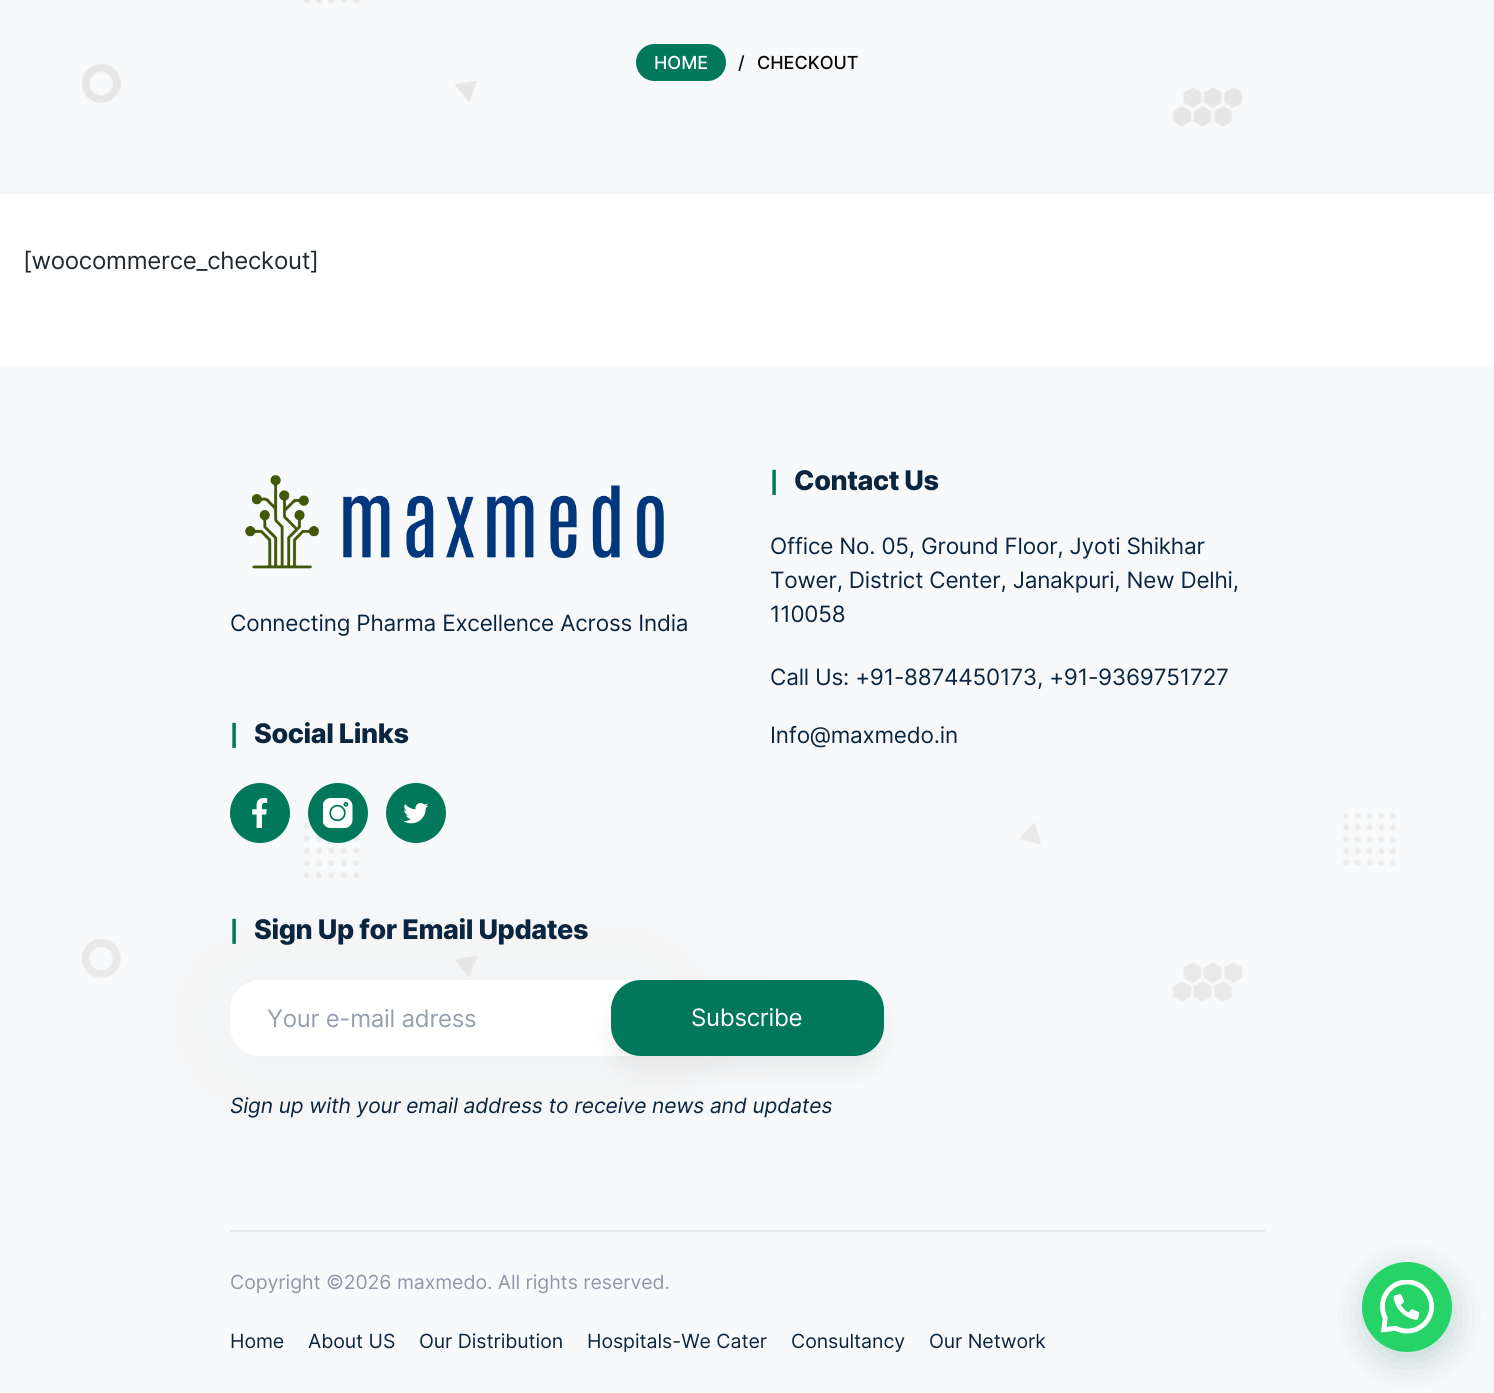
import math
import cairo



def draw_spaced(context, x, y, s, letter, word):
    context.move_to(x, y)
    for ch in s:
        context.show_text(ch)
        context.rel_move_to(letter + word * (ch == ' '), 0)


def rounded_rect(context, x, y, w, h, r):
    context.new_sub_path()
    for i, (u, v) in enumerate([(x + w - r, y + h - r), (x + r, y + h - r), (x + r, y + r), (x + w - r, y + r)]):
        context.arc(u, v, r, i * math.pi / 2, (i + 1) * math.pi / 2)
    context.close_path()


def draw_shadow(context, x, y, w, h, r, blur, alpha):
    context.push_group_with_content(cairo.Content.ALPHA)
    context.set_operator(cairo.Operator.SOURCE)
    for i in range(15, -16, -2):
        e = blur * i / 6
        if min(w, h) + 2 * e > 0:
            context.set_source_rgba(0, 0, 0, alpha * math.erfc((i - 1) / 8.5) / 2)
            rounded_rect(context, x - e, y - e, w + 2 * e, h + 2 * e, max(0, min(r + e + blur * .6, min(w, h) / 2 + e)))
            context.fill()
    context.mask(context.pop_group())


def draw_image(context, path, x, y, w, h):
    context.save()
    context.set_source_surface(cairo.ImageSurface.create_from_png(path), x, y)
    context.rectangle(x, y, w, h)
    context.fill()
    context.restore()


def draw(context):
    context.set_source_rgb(1, 1, 1)
    context.paint()
    context.set_source_rgb(245 / 255, 245 / 255, 245 / 255)
    context.rectangle(0, 192, 1494, 2)
    context.fill()
    context.set_source_rgb(248 / 255, 249 / 255, 250 / 255)
    context.rectangle(0, 0, 1494, 192)
    context.fill()
    draw_image(context, "images/1.png", 82, 0, 1161, 127)
    context.set_source_rgb(1 / 255, 120 / 255, 92 / 255)
    rounded_rect(context, 636, 44, 90, 37, 18.5)
    context.fill()
    context.set_source_rgb(248 / 255, 249 / 255, 250 / 255)
    context.rectangle(0, 365, 1494, 1028)
    context.fill()
    context.set_source_rgb(231 / 255, 232 / 255, 233 / 255)
    context.rectangle(230, 1230, 1035, 2)
    context.fill()
    draw_image(context, "images/2.png", 245, 475, 419, 94)
    draw_image(context, "images/6.png", 82, 812, 1314, 190)
    context.set_source_rgb(1 / 255, 120 / 255, 92 / 255)
    context.arc(260, 813, 30, 0, 2 * math.pi)
    context.fill()
    draw_image(context, "images/3.png", 252, 798, 16, 30)
    context.arc(338, 813, 30, 0, 2 * math.pi)
    context.fill()
    draw_image(context, "images/4.png", 323, 798, 30, 30)
    context.arc(416, 813, 30, 0, 2 * math.pi)
    context.fill()
    draw_image(context, "images/5.png", 403, 803, 26, 21)
    context.set_source_rgb(207 / 255, 207 / 255, 207 / 255)
    draw_shadow(context, 185, 936, 517, 167, 75, 45, 0.15)
    context.set_source_rgb(1, 1, 1)
    context.new_path()
    context.move_to(260, 980)
    context.line_to(657, 980)
    context.line_to(657, 1056)
    context.line_to(260, 1056)
    context.curve_to(243.5, 1056, 230, 1042.5, 230, 1026)
    context.line_to(230, 1010)
    context.curve_to(230, 993.5, 243.5, 980, 260, 980)
    context.close_path()
    context.fill()
    context.set_source_rgb(172 / 255, 172 / 255, 172 / 255)
    draw_shadow(context, 611, 995, 273, 76, 30, 11, 0.2)
    context.set_source_rgb(1 / 255, 120 / 255, 92 / 255)
    rounded_rect(context, 611, 980, 273, 76, 30)
    context.fill()
    context.set_source_rgb(7 / 255, 94 / 255, 84 / 255)
    draw_shadow(context, 1364, 1271, 90, 90, 45, 18, 0.24)
    context.set_source_rgb(37 / 255, 211 / 255, 102 / 255)
    context.arc(1407, 1307, 45, 0, 2 * math.pi)
    context.fill()
    draw_image(context, "images/7.png", 1380, 1280, 54, 54)
    context.select_font_face("Inter Medium")
    context.set_font_size(18)
    context.set_source_rgb(1, 1, 1)
    context.move_to(654, 69)
    context.show_text("HOME")
    context.set_source_rgb(8 / 255, 8 / 255, 8 / 255)
    context.move_to(738, 69)
    context.show_text("/")
    context.move_to(757, 69)
    context.show_text("CHECKOUT")
    context.select_font_face("Inter")
    context.set_font_size(24)
    context.set_source_rgb(32 / 255, 41 / 255, 47 / 255)
    draw_spaced(context, 23, 269, "[woocommerce_checkout]", -0.25, 0)
    context.set_font_size(22.5)
    context.set_source_rgb(10 / 255, 37 / 255, 64 / 255)
    draw_spaced(context, 230, 631, "Connecting Pharma Excellence Across India", -0.2, 0)
    context.select_font_face("Inter ExtraBold")
    context.set_font_size(21)
    context.set_source_rgb(1 / 255, 120 / 255, 92 / 255)
    context.move_to(230, 743)
    context.show_text("|")
    context.set_font_size(27)
    context.set_source_rgb(10 / 255, 37 / 255, 64 / 255)
    draw_spaced(context, 254, 743, "Social Links", -0.4, 0)
    context.set_font_size(21)
    context.set_source_rgb(1 / 255, 120 / 255, 92 / 255)
    context.move_to(770, 490)
    context.show_text("|")
    context.set_font_size(27)
    context.set_source_rgb(10 / 255, 37 / 255, 64 / 255)
    draw_spaced(context, 794, 490, "Contact Us", -0.4, 0)
    context.select_font_face("Inter")
    context.set_font_size(22.5)
    draw_spaced(context, 770, 554, "Office No. 05, Ground Floor, Jyoti Shikhar", -0.2, 0)
    draw_spaced(context, 770, 588, "Tower, District Center, Janakpuri, New Delhi,", -0.2, 0)
    draw_spaced(context, 770, 622, "110058", -0.2, 0)
    draw_spaced(context, 770, 685, "Call Us: +91-8874450173, +91-9369751727", -0.2, 0)
    draw_spaced(context, 770, 743, "Info@maxmedo.in", -0.2, 0)
    context.select_font_face("Inter ExtraBold")
    context.set_font_size(21)
    context.set_source_rgb(1 / 255, 120 / 255, 92 / 255)
    context.move_to(230, 939)
    context.show_text("|")
    context.set_font_size(27)
    context.set_source_rgb(10 / 255, 37 / 255, 64 / 255)
    draw_spaced(context, 254, 939, "Sign Up for Email Updates", -0.4, 0)
    context.select_font_face("Inter")
    context.set_font_size(24)
    context.set_source_rgb(149 / 255, 159 / 255, 176 / 255)
    draw_spaced(context, 267, 1027, "Your e-mail adress", -0.25, 0)
    context.set_source_rgb(1, 1, 1)
    draw_spaced(context, 691, 1026, "Subscribe", -0.25, 0)
    context.select_font_face("Inter", cairo.FontSlant.ITALIC)
    context.set_font_size(21)
    context.set_source_rgb(10 / 255, 37 / 255, 64 / 255)
    draw_spaced(context, 230, 1113, "Sign up with your email address to receive news and updates", -0.13, 0)
    context.select_font_face("Inter")
    context.set_font_size(19.5)
    context.set_source_rgb(144 / 255, 151 / 255, 170 / 255)
    draw_spaced(context, 230, 1289, "Copyright ©2026 maxmedo. All rights reserved.", -0.05, 0)
    context.set_source_rgb(10 / 255, 37 / 255, 64 / 255)
    draw_spaced(context, 230, 1348, "Home", -0.05, 0)
    draw_spaced(context, 308, 1348, "About US", -0.05, 0)
    draw_spaced(context, 419, 1348, "Our Distribution", -0.05, 0)
    draw_spaced(context, 587, 1348, "Hospitals-We Cater", -0.05, 0)
    draw_spaced(context, 791, 1348, "Consultancy", -0.05, 0)
    draw_spaced(context, 929, 1348, "Our Network", -0.05, 0)


surface = cairo.ImageSurface(cairo.Format.RGB24, 1494, 1393)
context = cairo.Context(surface)
options = cairo.FontOptions()
options.set_hint_metrics(cairo.HintMetrics.OFF)
options.set_hint_style(cairo.HintStyle.NONE)
context.set_font_options(options)
context.set_miter_limit(4)
draw(context)
surface.write_to_png("out.png")
